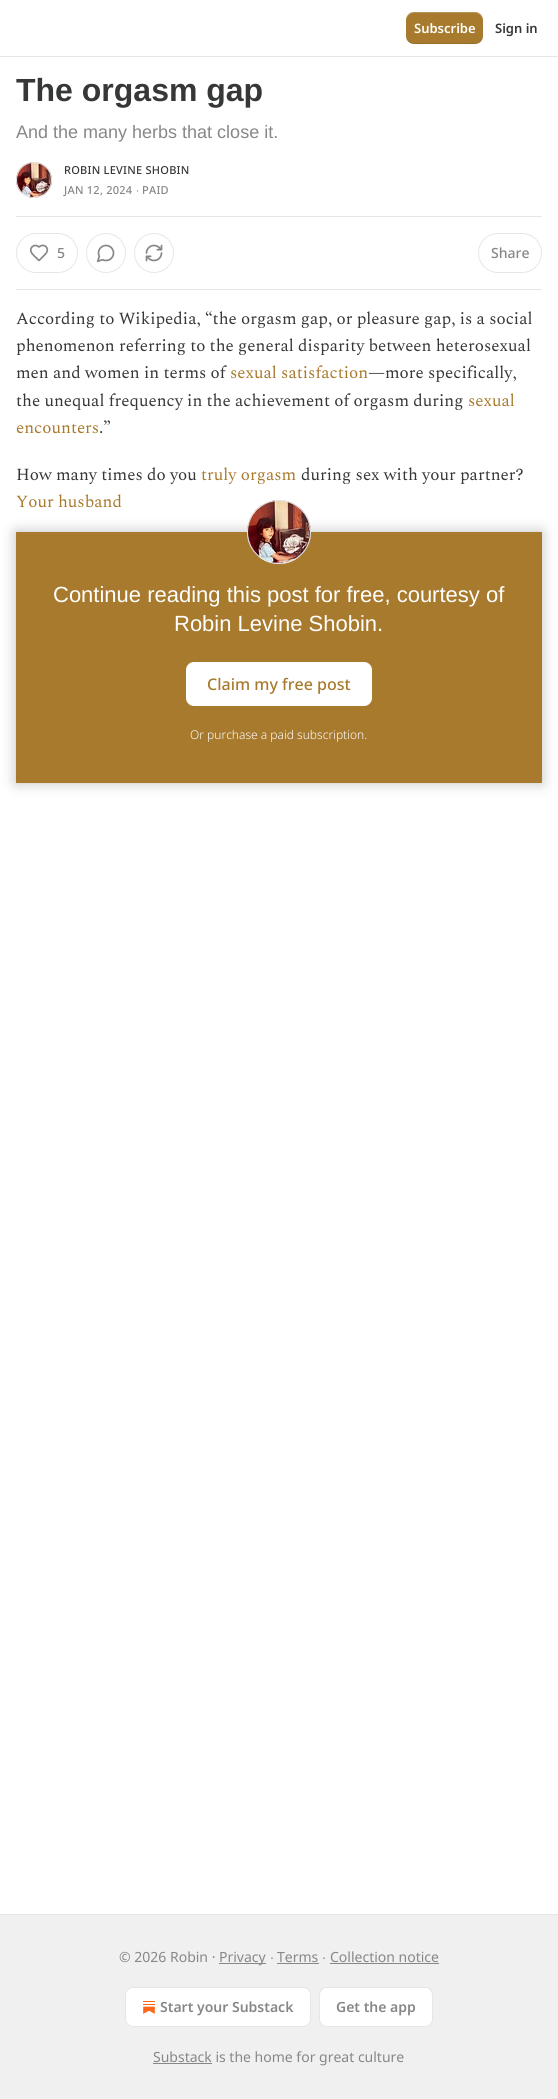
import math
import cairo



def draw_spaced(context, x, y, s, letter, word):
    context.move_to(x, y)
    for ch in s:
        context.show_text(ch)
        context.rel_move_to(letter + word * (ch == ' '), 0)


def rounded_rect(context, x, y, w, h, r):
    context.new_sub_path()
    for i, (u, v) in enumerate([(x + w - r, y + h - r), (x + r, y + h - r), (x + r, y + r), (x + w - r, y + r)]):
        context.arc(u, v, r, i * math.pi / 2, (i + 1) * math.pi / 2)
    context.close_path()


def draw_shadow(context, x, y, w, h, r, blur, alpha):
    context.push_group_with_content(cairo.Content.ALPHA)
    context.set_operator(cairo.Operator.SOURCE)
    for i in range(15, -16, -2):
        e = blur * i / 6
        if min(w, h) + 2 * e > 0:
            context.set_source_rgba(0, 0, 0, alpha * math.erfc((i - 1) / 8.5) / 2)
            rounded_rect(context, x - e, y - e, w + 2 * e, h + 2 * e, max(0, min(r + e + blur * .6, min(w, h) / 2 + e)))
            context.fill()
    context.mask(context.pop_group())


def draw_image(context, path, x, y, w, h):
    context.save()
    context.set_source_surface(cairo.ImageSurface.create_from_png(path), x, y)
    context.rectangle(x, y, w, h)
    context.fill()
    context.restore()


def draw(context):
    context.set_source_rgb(1, 1, 1)
    context.paint()
    context.set_source_rgb(230 / 255, 230 / 255, 230 / 255)
    context.rectangle(0, 56, 558, 1)
    context.fill()
    context.set_source_rgb(168 / 255, 122 / 255, 45 / 255)
    rounded_rect(context, 406, 12, 77, 32, 8)
    context.fill()
    context.set_source_rgba(0, 0, 0, 0.1)
    context.new_path()
    context.move_to(406, 35)
    context.curve_to(406, 46, 416, 44, 424, 44)
    context.line_to(465, 44)
    context.curve_to(473, 44, 483, 46, 483, 35)
    context.curve_to(483, 39, 479, 43, 475, 43)
    context.line_to(414, 43)
    context.curve_to(410, 43, 406, 39, 406, 35)
    context.close_path()
    context.fill()
    context.set_source_rgba(1, 1, 1, 0.2)
    context.new_path()
    context.move_to(414, 13)
    context.line_to(475, 13)
    context.curve_to(479, 13, 483, 17, 483, 21)
    context.curve_to(483, 10, 473, 12, 465, 12)
    context.line_to(424, 12)
    context.curve_to(416, 12, 406, 10, 406, 21)
    context.curve_to(406, 17, 410, 13, 414, 13)
    context.close_path()
    context.fill()
    context.arc(34, 180, 17.5, 0, 2 * math.pi)
    context.set_source_rgb(230 / 255, 230 / 255, 230 / 255)
    context.set_line_width(1)
    context.stroke()
    draw_image(context, "images/1.png", 16, 162, 36, 36)
    context.arc(34, 180, 17.5, 0, 2 * math.pi)
    context.stroke()
    context.rectangle(16, 216, 526, 1)
    context.fill()
    context.rectangle(16, 289, 526, 1)
    context.fill()
    rounded_rect(context, 16.5, 233.5, 61, 39, 19.5)
    context.stroke()
    context.new_path()
    context.move_to(45, 254.5)
    context.curve_to(51, 248.5, 44, 242.5, 39, 247)
    context.curve_to(35.5, 243.5, 29.5, 246.5, 31, 251.5)
    context.curve_to(32, 254.5, 37, 258.5, 39, 260.5)
    context.close_path()
    context.set_source_rgb(134 / 255, 135 / 255, 135 / 255)
    context.set_line_width(1.7)
    context.set_line_cap(cairo.LineCap.ROUND)
    context.set_line_join(cairo.LineJoin.ROUND)
    context.stroke()
    context.arc(106, 253, 19.5, 0, 2 * math.pi)
    context.set_source_rgb(230 / 255, 230 / 255, 230 / 255)
    context.set_line_width(1)
    context.set_line_cap(cairo.LineCap.BUTT)
    context.set_line_join(cairo.LineJoin.MITER)
    context.stroke()
    draw_image(context, "images/2.png", 96, 244, 19, 19)
    context.arc(154, 253, 19.5, 0, 2 * math.pi)
    context.stroke()
    draw_image(context, "images/3.png", 145, 244, 18, 18)
    rounded_rect(context, 478.5, 233.5, 63, 39, 19.5)
    context.stroke()
    context.set_source_rgb(168 / 255, 122 / 255, 45 / 255)
    context.rectangle(16, 532, 526, 251)
    context.fill()
    context.set_source_rgb(1, 1, 1)
    rounded_rect(context, 186.5, 662.5, 185, 43, 7.5)
    context.fill_preserve()
    context.stroke()
    context.save()
    context.set_fill_rule(cairo.FillRule.EVEN_ODD)
    context.new_path()
    context.move_to(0, 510)
    context.line_to(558, 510)
    context.line_to(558, 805)
    context.line_to(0, 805)
    context.close_path()
    context.move_to(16, 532)
    context.line_to(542, 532)
    context.line_to(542, 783)
    context.line_to(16, 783)
    context.close_path()
    context.clip()
    context.set_source_rgb(0, 0, 0)
    draw_shadow(context, 16, 532, 526, 251, 0, 7, 0.25)
    context.restore()
    context.arc(279, 532, 31.5, 0, 2 * math.pi)
    context.set_source_rgb(230 / 255, 230 / 255, 230 / 255)
    context.stroke()
    draw_image(context, "images/4.png", 247, 500, 64, 64)
    context.arc(279, 532, 31.5, 0, 2 * math.pi)
    context.stroke()
    context.set_source_rgb(240 / 255, 240 / 255, 240 / 255)
    context.rectangle(0, 1915, 558, 184)
    context.fill()
    context.set_source_rgb(230 / 255, 230 / 255, 230 / 255)
    context.rectangle(0, 1914, 558, 1)
    context.fill()
    context.set_source_rgb(134 / 255, 135 / 255, 135 / 255)
    context.rectangle(219, 1963, 47, 1)
    context.fill()
    context.rectangle(277, 1963, 42, 1)
    context.fill()
    context.rectangle(330, 1963, 109, 1)
    context.fill()
    context.set_source_rgb(1, 1, 1)
    rounded_rect(context, 125.5, 1987.5, 185, 39, 7.5)
    context.fill_preserve()
    context.set_source_rgb(230 / 255, 230 / 255, 230 / 255)
    context.stroke()
    draw_image(context, "images/5.png", 143, 2001, 12, 13)
    context.set_source_rgb(1, 1, 1)
    rounded_rect(context, 319.5, 1987.5, 113, 39, 7.5)
    context.fill_preserve()
    context.set_source_rgb(230 / 255, 230 / 255, 230 / 255)
    context.stroke()
    context.set_source_rgb(134 / 255, 135 / 255, 135 / 255)
    context.rectangle(153, 2063, 59, 1)
    context.fill()
    context.select_font_face("Noto Sans SemiBold")
    context.set_font_size(13)
    context.set_source_rgb(1, 1, 1)
    context.move_to(414, 33)
    context.show_text("Subscribe")
    context.set_source_rgb(54 / 255, 55 / 255, 55 / 255)
    context.move_to(495, 33)
    context.show_text("Sign in")
    context.select_font_face("Liberation Sans", cairo.FontSlant.NORMAL, cairo.FontWeight.BOLD)
    context.set_font_size(32)
    context.move_to(16, 101)
    context.show_text("The orgasm gap")
    context.select_font_face("Liberation Sans")
    context.set_font_size(18)
    context.set_source_rgb(134 / 255, 135 / 255, 135 / 255)
    context.move_to(16, 138)
    context.show_text("And the many herbs that close it.")
    context.select_font_face("Noto Sans Medium")
    context.set_font_size(11)
    context.set_source_rgb(54 / 255, 55 / 255, 55 / 255)
    draw_spaced(context, 64, 174, "ROBIN LEVINE SHOBIN", 0.25, 0)
    context.set_source_rgb(134 / 255, 135 / 255, 135 / 255)
    draw_spaced(context, 64, 194, "JAN 12, 2024", 0.25, 0)
    context.select_font_face("Liberation Sans")
    draw_spaced(context, 136, 194, "∙", 0.25, 0)
    context.select_font_face("Noto Sans Medium")
    draw_spaced(context, 142, 194, "PAID", 0.25, 0)
    context.set_font_size(14)
    context.move_to(57, 258)
    context.show_text("5")
    context.move_to(491, 258)
    context.show_text("Share")
    context.select_font_face("Spectral")
    context.set_font_size(17)
    context.set_source_rgb(54 / 255, 55 / 255, 55 / 255)
    context.move_to(16, 324)
    context.show_text("According to Wikipedia, “the orgasm gap, or pleasure gap, is a social")
    context.move_to(16, 351)
    context.show_text("phenomenon referring to the general disparity between heterosexual")
    context.move_to(16, 378)
    context.show_text("men and women in terms of")
    context.set_source_rgb(168 / 255, 122 / 255, 45 / 255)
    context.move_to(230, 378)
    context.show_text("sexual satisfaction")
    context.set_source_rgb(54 / 255, 55 / 255, 55 / 255)
    context.move_to(368, 378)
    context.show_text("—more specifically,")
    context.move_to(16, 406)
    context.show_text("the unequal frequency in the achievement of orgasm during")
    context.set_source_rgb(168 / 255, 122 / 255, 45 / 255)
    context.move_to(468, 406)
    context.show_text("sexual")
    context.move_to(16, 433)
    context.show_text("encounters")
    context.set_source_rgb(54 / 255, 55 / 255, 55 / 255)
    context.move_to(99, 433)
    context.show_text(".”")
    context.move_to(16, 480)
    context.show_text("How many times do you")
    context.set_source_rgb(168 / 255, 122 / 255, 45 / 255)
    context.move_to(201, 480)
    context.show_text("truly orgasm")
    context.set_source_rgb(54 / 255, 55 / 255, 55 / 255)
    context.move_to(301, 480)
    context.show_text("during sex with your partner?")
    context.set_source_rgb(168 / 255, 122 / 255, 45 / 255)
    context.move_to(16, 507)
    context.show_text("Your husband")
    context.select_font_face("Liberation Sans")
    context.set_font_size(22)
    context.set_source_rgb(1, 1, 1)
    context.move_to(53, 602)
    context.show_text("Continue reading this post for free, courtesy of")
    context.move_to(174, 631)
    context.show_text("Robin Levine Shobin.")
    context.select_font_face("Noto Sans Medium")
    context.set_font_size(16)
    context.set_source_rgb(168 / 255, 122 / 255, 45 / 255)
    context.move_to(207, 690)
    context.show_text("Claim my free post")
    context.select_font_face("Noto Sans Light")
    context.set_font_size(12)
    context.set_source_rgb(1, 1, 1)
    context.move_to(190, 739)
    context.show_text("Or purchase a paid subscription.")
    context.select_font_face("Noto Sans")
    context.set_font_size(14)
    context.set_source_rgb(134 / 255, 135 / 255, 135 / 255)
    context.move_to(119, 1962)
    context.show_text("© 2026 Robin ·")
    context.move_to(219, 1962)
    context.show_text("Privacy")
    context.select_font_face("Liberation Sans")
    context.move_to(270, 1962)
    context.show_text("∙")
    context.select_font_face("Noto Sans")
    context.move_to(277, 1962)
    context.show_text("Terms")
    context.select_font_face("Liberation Sans")
    context.move_to(322, 1962)
    context.show_text("∙")
    context.select_font_face("Noto Sans")
    context.move_to(330, 1962)
    context.show_text("Collection notice")
    context.select_font_face("Noto Sans SemiBold")
    context.move_to(160, 2012)
    context.show_text("Start your Substack")
    context.move_to(336, 2012)
    context.show_text("Get the app")
    context.select_font_face("Noto Sans")
    context.move_to(153, 2062)
    context.show_text("Substack is the home for great culture")


surface = cairo.ImageSurface(cairo.Format.RGB24, 558, 2099)
context = cairo.Context(surface)
options = cairo.FontOptions()
options.set_hint_metrics(cairo.HintMetrics.OFF)
options.set_hint_style(cairo.HintStyle.NONE)
context.set_font_options(options)
context.set_miter_limit(4)
draw(context)
surface.write_to_png("out.png")
